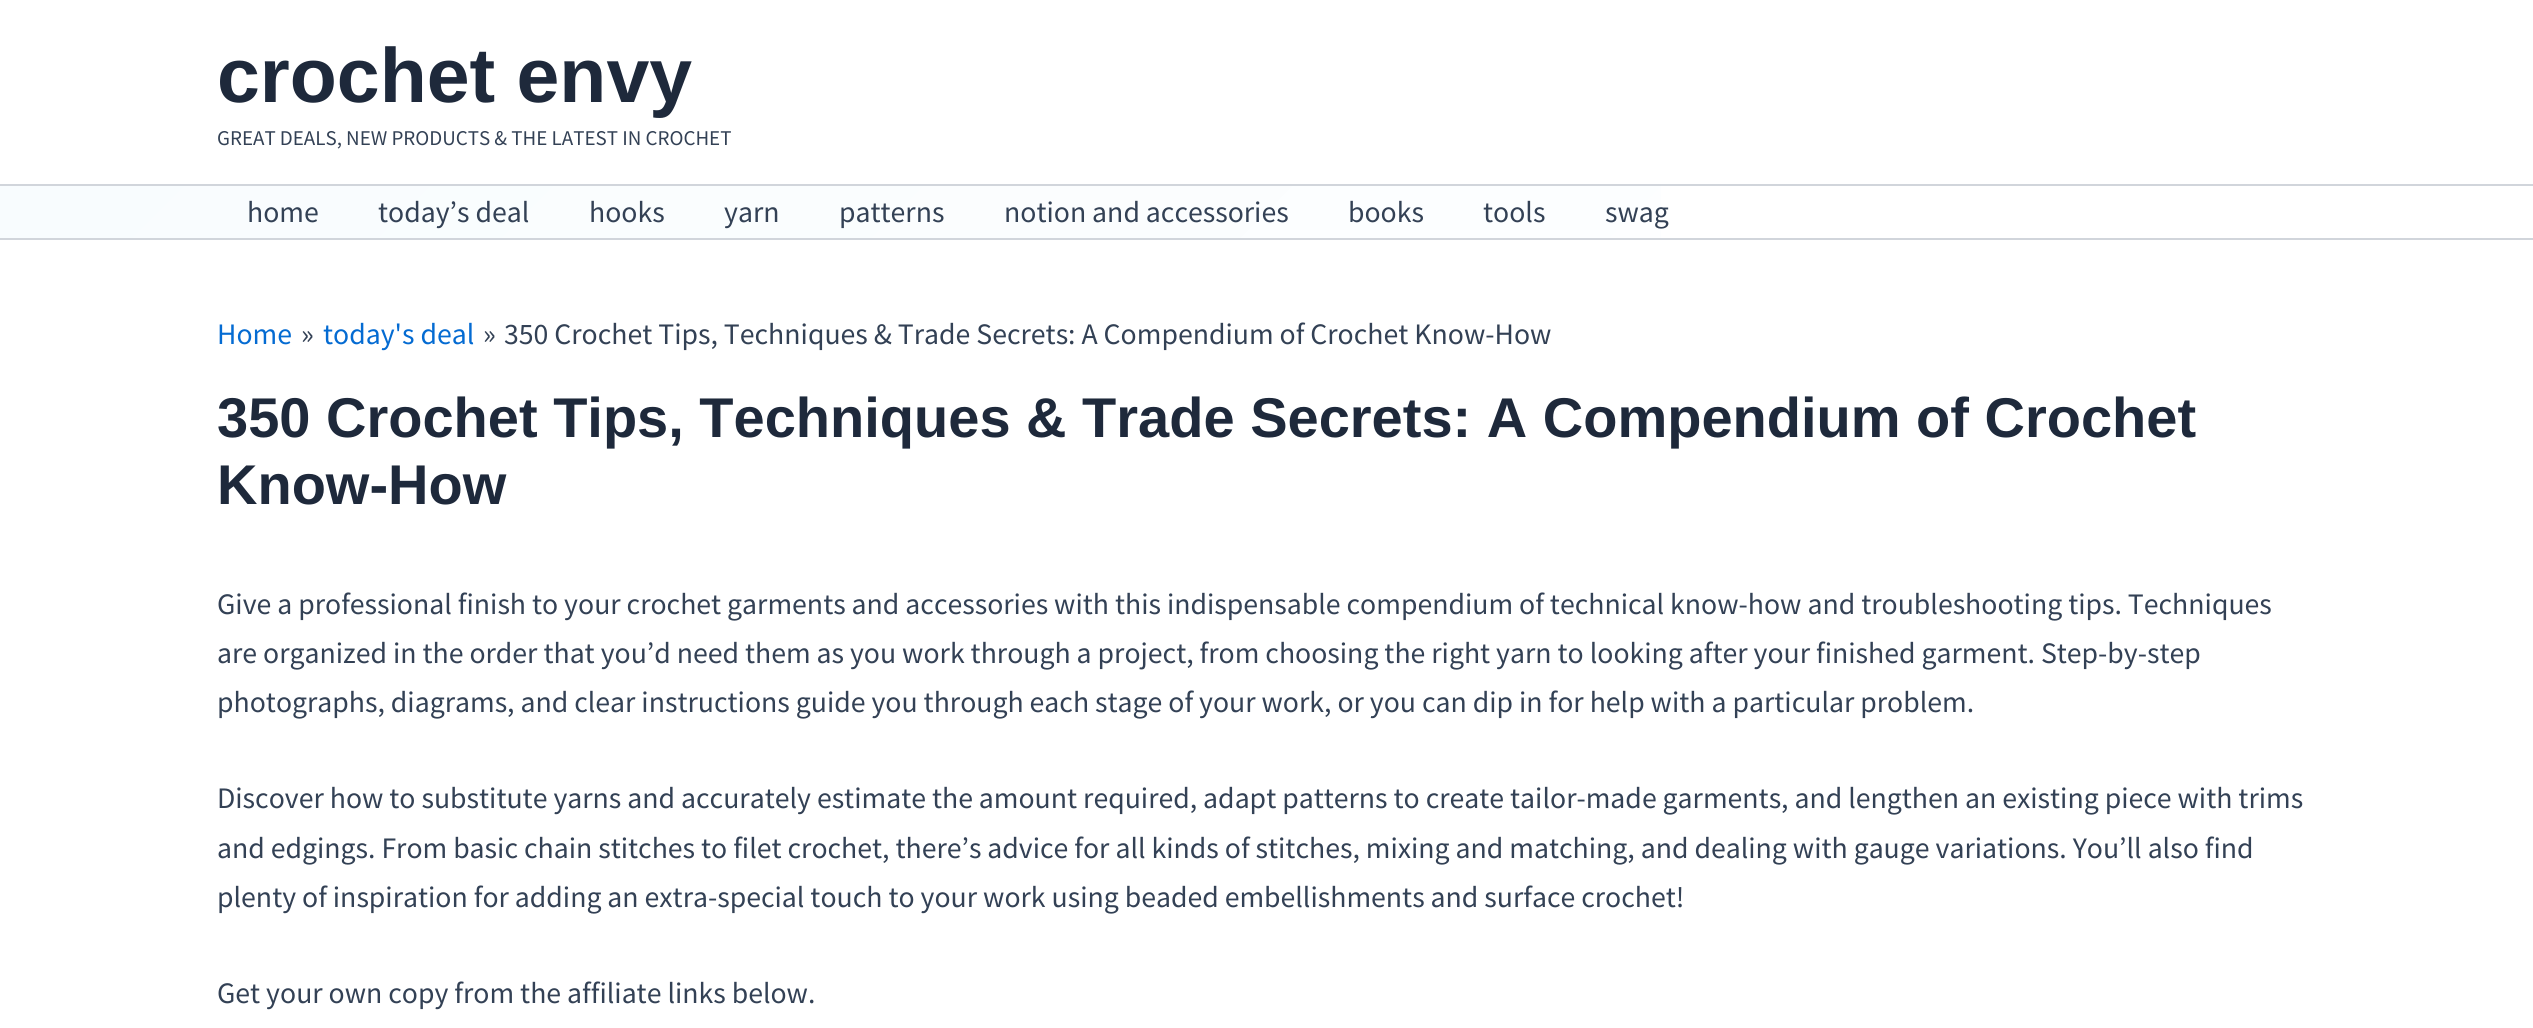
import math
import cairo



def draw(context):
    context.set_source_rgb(1, 1, 1)
    context.paint()
    context.set_source_rgb(209 / 255, 213 / 255, 219 / 255)
    context.rectangle(0, 184, 2533, 2)
    context.fill()
    gradient = cairo.LinearGradient(620, -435, 1914, 858)
    gradient.add_color_stop_rgba(0, 248 / 255, 252 / 255, 254 / 255, 1)
    gradient.add_color_stop_rgba(1, 1, 1, 1, 1)
    context.set_source(gradient)
    context.rectangle(0, 186, 1661, 52)
    context.fill()
    context.set_source_rgb(209 / 255, 213 / 255, 219 / 255)
    context.rectangle(0, 238, 2533, 2)
    context.fill()
    context.select_font_face("Liberation Sans", cairo.FontSlant.NORMAL, cairo.FontWeight.BOLD)
    context.set_font_size(77)
    context.set_source_rgb(30 / 255, 41 / 255, 59 / 255)
    context.move_to(217, 102)
    context.show_text("crochet envy")
    context.select_font_face("Source Sans Pro")
    context.set_font_size(21)
    context.set_source_rgb(51 / 255, 65 / 255, 85 / 255)
    context.move_to(217, 145)
    context.show_text("GREAT DEALS, NEW PRODUCTS & THE LATEST IN CROCHET")
    context.set_font_size(29.75)
    context.move_to(247, 222)
    context.show_text("home")
    context.move_to(378, 222)
    context.show_text("today’s deal")
    context.move_to(589, 222)
    context.show_text("hooks")
    context.move_to(724, 222)
    context.show_text("yarn")
    context.move_to(839, 222)
    context.show_text("patterns")
    context.move_to(1004, 222)
    context.show_text("notion and accessories")
    context.move_to(1348, 222)
    context.show_text("books")
    context.move_to(1483, 222)
    context.show_text("tools")
    context.move_to(1605, 222)
    context.show_text("swag")
    context.set_source_rgb(4 / 255, 107 / 255, 210 / 255)
    context.move_to(217, 344)
    context.show_text("Home")
    context.set_source_rgb(51 / 255, 65 / 255, 85 / 255)
    context.move_to(301, 344)
    context.show_text("»")
    context.set_source_rgb(4 / 255, 107 / 255, 210 / 255)
    context.move_to(323, 344)
    context.show_text("today's deal")
    context.set_source_rgb(51 / 255, 65 / 255, 85 / 255)
    context.move_to(483, 344)
    context.show_text("»")
    context.move_to(504, 344)
    context.show_text("350 Crochet Tips, Techniques & Trade Secrets: A Compendium of Crochet Know-How")
    context.select_font_face("Liberation Sans", cairo.FontSlant.NORMAL, cairo.FontWeight.BOLD)
    context.set_font_size(56)
    context.set_source_rgb(30 / 255, 41 / 255, 59 / 255)
    context.move_to(217, 437)
    context.show_text("350 Crochet Tips, Techniques & Trade Secrets: A Compendium of Crochet")
    context.move_to(217, 504)
    context.show_text("Know-How")
    context.select_font_face("Source Sans Pro")
    context.set_font_size(29.75)
    context.set_source_rgb(51 / 255, 65 / 255, 85 / 255)
    context.move_to(217, 614)
    context.show_text("Give a professional finish to your crochet garments and accessories with this indispensable compendium of technical know-how and troubleshooting tips. Techniques")
    context.move_to(217, 663)
    context.show_text("are organized in the order that you’d need them as you work through a project, from choosing the right yarn to looking after your finished garment. Step-by-step")
    context.move_to(217, 712)
    context.show_text("photographs, diagrams, and clear instructions guide you through each stage of your work, or you can dip in for help with a particular problem.")
    context.move_to(217, 808)
    context.show_text("Discover how to substitute yarns and accurately estimate the amount required, adapt patterns to create tailor-made garments, and lengthen an existing piece with trims")
    context.move_to(217, 858)
    context.show_text("and edgings. From basic chain stitches to filet crochet, there’s advice for all kinds of stitches, mixing and matching, and dealing with gauge variations. You’ll also find")
    context.move_to(217, 907)
    context.show_text("plenty of inspiration for adding an extra-special touch to your work using beaded embellishments and surface crochet!")
    context.move_to(217, 1003)
    context.show_text("Get your own copy from the affiliate links below.")


surface = cairo.ImageSurface(cairo.Format.RGB24, 2533, 1028)
context = cairo.Context(surface)
options = cairo.FontOptions()
options.set_hint_metrics(cairo.HintMetrics.OFF)
options.set_hint_style(cairo.HintStyle.NONE)
context.set_font_options(options)
context.set_miter_limit(4)
draw(context)
surface.write_to_png("out.png")
